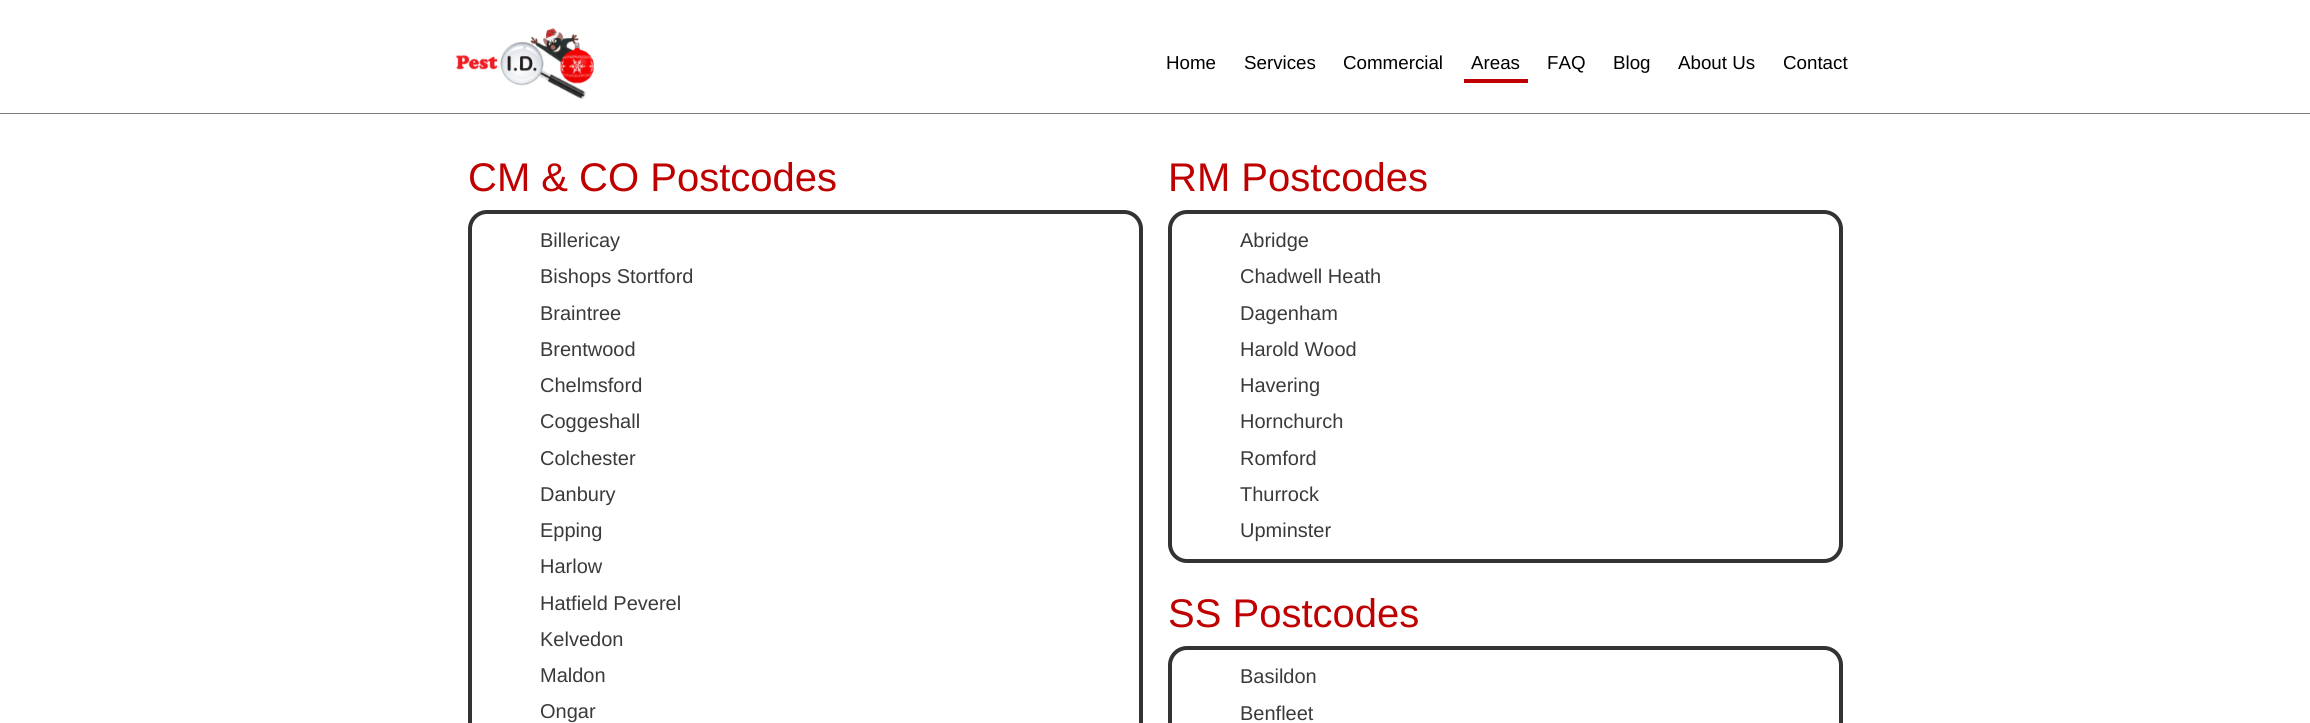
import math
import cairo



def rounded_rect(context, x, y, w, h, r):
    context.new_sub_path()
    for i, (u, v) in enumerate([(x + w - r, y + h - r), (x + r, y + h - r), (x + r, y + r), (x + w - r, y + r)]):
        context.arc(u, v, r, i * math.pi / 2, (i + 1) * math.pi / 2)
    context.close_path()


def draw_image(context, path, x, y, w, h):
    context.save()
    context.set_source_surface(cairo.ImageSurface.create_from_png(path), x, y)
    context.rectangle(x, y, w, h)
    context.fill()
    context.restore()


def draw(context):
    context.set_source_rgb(1, 1, 1)
    context.paint()
    context.set_source_rgb(122 / 255, 122 / 255, 122 / 255)
    context.rectangle(0, 113, 2310, 1)
    context.fill()
    draw_image(context, "images/1.png", 455, 28, 139, 72)
    context.set_source_rgb(191 / 255, 0, 0)
    context.rectangle(1464, 79, 64, 4)
    context.fill()
    rounded_rect(context, 470, 212, 671, 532, 17)
    context.set_source_rgb(51 / 255, 51 / 255, 51 / 255)
    context.set_line_width(4)
    context.stroke()
    rounded_rect(context, 1170, 212, 671, 349, 17)
    context.stroke()
    rounded_rect(context, 1170, 648, 671, 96, 17)
    context.stroke()
    context.select_font_face("Liberation Sans")
    context.set_font_size(18.75)
    context.set_source_rgb(0, 0, 0)
    context.move_to(1166, 69)
    context.show_text("Home")
    context.move_to(1244, 69)
    context.show_text("Services")
    context.move_to(1343, 69)
    context.show_text("Commercial")
    context.move_to(1471, 69)
    context.show_text("Areas")
    context.move_to(1547, 69)
    context.show_text("FAQ")
    context.move_to(1613, 69)
    context.show_text("Blog")
    context.move_to(1678, 69)
    context.show_text("About Us")
    context.move_to(1783, 69)
    context.show_text("Contact")
    context.set_font_size(40)
    context.set_source_rgb(191 / 255, 0, 0)
    context.move_to(468, 191)
    context.show_text("CM & CO Postcodes")
    context.set_font_size(20)
    context.set_source_rgb(58 / 255, 58 / 255, 58 / 255)
    context.move_to(540, 247)
    context.show_text("Billericay")
    context.move_to(540, 283)
    context.show_text("Bishops Stortford")
    context.move_to(540, 320)
    context.show_text("Braintree")
    context.move_to(540, 356)
    context.show_text("Brentwood")
    context.move_to(540, 392)
    context.show_text("Chelmsford")
    context.move_to(540, 428)
    context.show_text("Coggeshall")
    context.move_to(540, 465)
    context.show_text("Colchester")
    context.move_to(540, 501)
    context.show_text("Danbury")
    context.move_to(540, 537)
    context.show_text("Epping")
    context.move_to(540, 573)
    context.show_text("Harlow")
    context.move_to(540, 610)
    context.show_text("Hatfield Peverel")
    context.move_to(540, 646)
    context.show_text("Kelvedon")
    context.move_to(540, 682)
    context.show_text("Maldon")
    context.move_to(540, 718)
    context.show_text("Ongar")
    context.set_font_size(40)
    context.set_source_rgb(191 / 255, 0, 0)
    context.move_to(1168, 191)
    context.show_text("RM Postcodes")
    context.set_font_size(20)
    context.set_source_rgb(58 / 255, 58 / 255, 58 / 255)
    context.move_to(1240, 247)
    context.show_text("Abridge")
    context.move_to(1240, 283)
    context.show_text("Chadwell Heath")
    context.move_to(1240, 320)
    context.show_text("Dagenham")
    context.move_to(1240, 356)
    context.show_text("Harold Wood")
    context.move_to(1240, 392)
    context.show_text("Havering")
    context.move_to(1240, 428)
    context.show_text("Hornchurch")
    context.move_to(1240, 465)
    context.show_text("Romford")
    context.move_to(1240, 501)
    context.show_text("Thurrock")
    context.move_to(1240, 537)
    context.show_text("Upminster")
    context.set_font_size(40)
    context.set_source_rgb(191 / 255, 0, 0)
    context.move_to(1168, 627)
    context.show_text("SS Postcodes")
    context.set_font_size(20)
    context.set_source_rgb(58 / 255, 58 / 255, 58 / 255)
    context.move_to(1240, 683)
    context.show_text("Basildon")
    context.move_to(1240, 720)
    context.show_text("Benfleet")


surface = cairo.ImageSurface(cairo.Format.RGB24, 2310, 723)
context = cairo.Context(surface)
options = cairo.FontOptions()
options.set_hint_metrics(cairo.HintMetrics.OFF)
options.set_hint_style(cairo.HintStyle.NONE)
context.set_font_options(options)
context.set_miter_limit(4)
draw(context)
surface.write_to_png("out.png")
